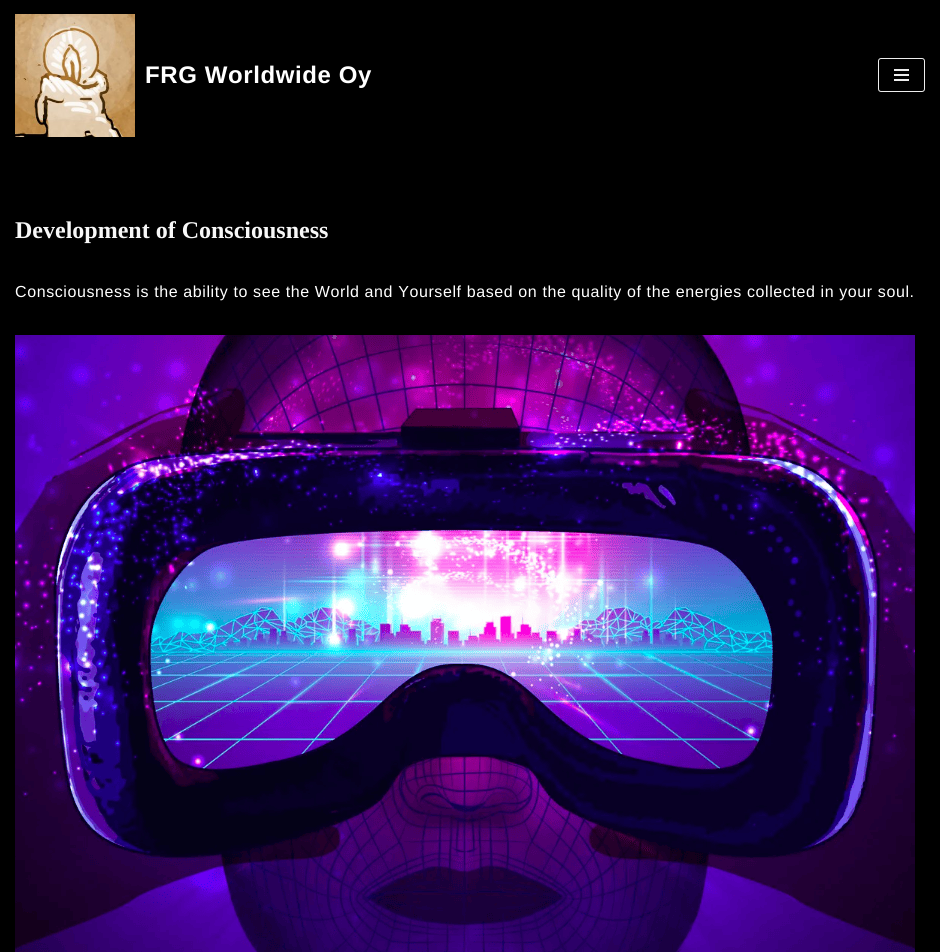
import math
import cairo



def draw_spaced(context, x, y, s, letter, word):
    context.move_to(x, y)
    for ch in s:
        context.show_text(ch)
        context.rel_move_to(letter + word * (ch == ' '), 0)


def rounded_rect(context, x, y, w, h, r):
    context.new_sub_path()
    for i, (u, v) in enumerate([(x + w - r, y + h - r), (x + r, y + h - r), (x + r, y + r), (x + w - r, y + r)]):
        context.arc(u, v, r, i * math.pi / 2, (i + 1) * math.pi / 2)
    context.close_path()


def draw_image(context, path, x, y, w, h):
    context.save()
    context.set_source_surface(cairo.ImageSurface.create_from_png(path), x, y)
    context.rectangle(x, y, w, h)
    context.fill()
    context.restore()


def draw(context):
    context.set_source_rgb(0, 0, 0)
    context.paint()
    draw_image(context, "images/1.png", 15, 14, 120, 123)
    rounded_rect(context, 878.5, 58.5, 46, 33, 2.5)
    context.set_source_rgb(237 / 255, 237 / 255, 237 / 255)
    context.set_line_width(1)
    context.stroke()
    context.rectangle(894, 69, 15, 2)
    context.fill()
    context.rectangle(894, 74, 15, 2)
    context.fill()
    context.rectangle(894, 79, 15, 2)
    context.fill()
    draw_image(context, "images/2.png", 15, 335, 900, 617)
    context.select_font_face("Liberation Sans", cairo.FontSlant.NORMAL, cairo.FontWeight.BOLD)
    context.set_font_size(24)
    context.set_source_rgb(1, 1, 1)
    draw_spaced(context, 145, 83, "FRG Worldwide Oy", 0.6, 0)
    context.select_font_face("Liberation Serif", cairo.FontSlant.NORMAL, cairo.FontWeight.BOLD)
    context.set_source_rgb(248 / 255, 248 / 255, 248 / 255)
    context.move_to(15, 238)
    context.show_text("Development of Consciousness")
    context.select_font_face("Liberation Sans")
    context.set_font_size(16)
    context.set_source_rgb(1, 1, 1)
    draw_spaced(context, 15, 297, "Consciousness is the ability to see the World and Yourself based on the quality of the energies collected in your soul.", 0.6, 0)


surface = cairo.ImageSurface(cairo.Format.RGB24, 940, 952)
context = cairo.Context(surface)
options = cairo.FontOptions()
options.set_hint_metrics(cairo.HintMetrics.OFF)
options.set_hint_style(cairo.HintStyle.NONE)
context.set_font_options(options)
context.set_miter_limit(4)
draw(context)
surface.write_to_png("out.png")
